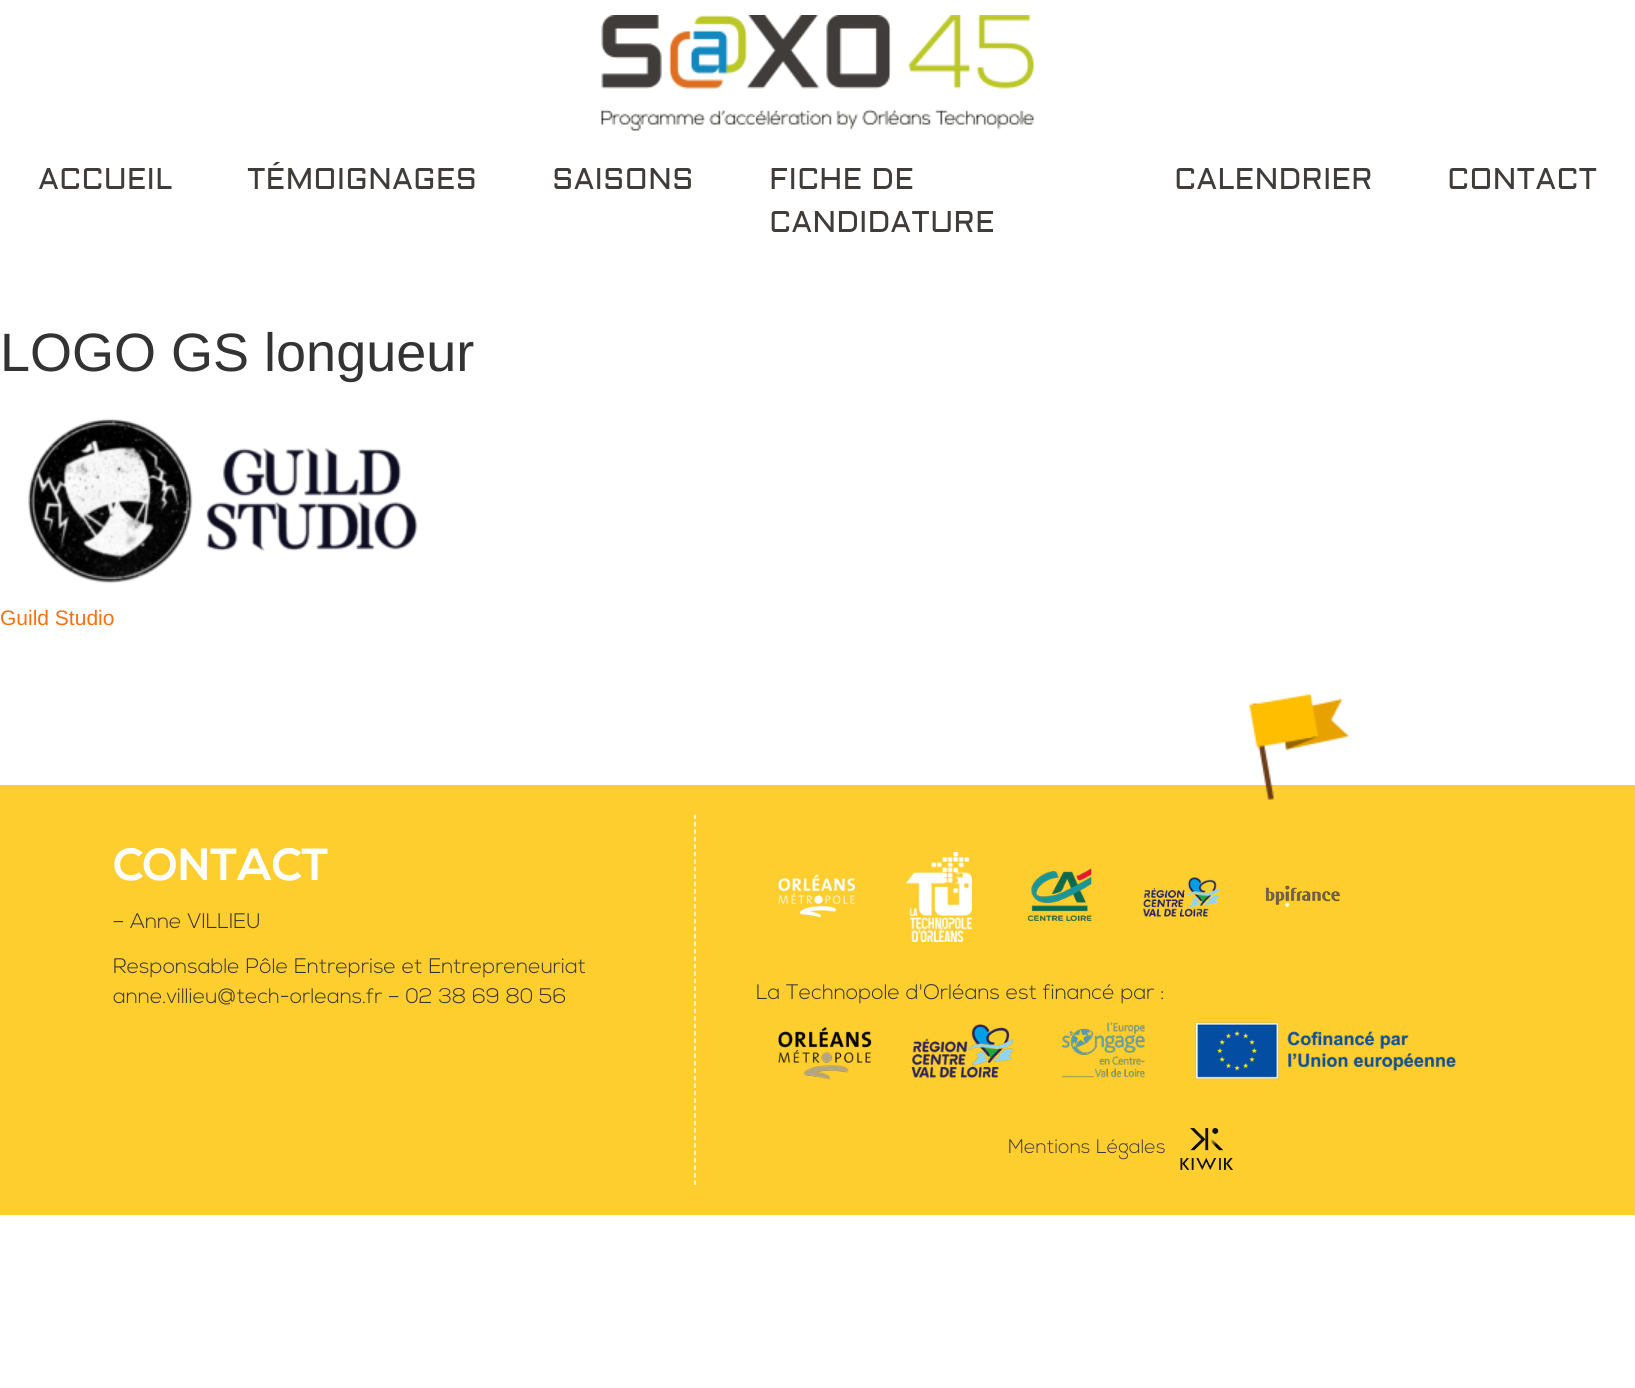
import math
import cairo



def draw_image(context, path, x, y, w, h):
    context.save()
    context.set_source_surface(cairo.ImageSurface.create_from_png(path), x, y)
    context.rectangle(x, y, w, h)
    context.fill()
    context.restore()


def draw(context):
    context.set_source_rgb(1, 1, 1)
    context.paint()
    draw_image(context, "images/1.png", 601, 15, 433, 116)
    draw_image(context, "images/2.png", 28, 418, 390, 166)
    context.set_source_rgb(254 / 255, 205 / 255, 46 / 255)
    context.rectangle(0, 785, 1635, 430)
    context.fill()
    context.new_path()
    context.move_to(695, 814.5)
    context.line_to(695, 1185)
    context.set_source_rgb(1, 1, 1)
    context.set_line_width(1.5)
    context.set_dash([4.5, 2.97])
    context.stroke()
    draw_image(context, "images/3.png", 778, 874, 77, 44)
    draw_image(context, "images/4.png", 906, 852, 66, 90)
    draw_image(context, "images/5.png", 1027, 868, 65, 54)
    draw_image(context, "images/6.png", 1143, 877, 77, 40)
    draw_image(context, "images/7.png", 1249, 694, 100, 106)
    draw_image(context, "images/8.png", 1265, 885, 75, 22)
    draw_image(context, "images/9.png", 778, 1022, 678, 58)
    draw_image(context, "images/10.png", 1180, 1128, 53, 42)
    context.select_font_face("Aldrich")
    context.set_font_size(30)
    context.set_source_rgb(64 / 255, 60 / 255, 57 / 255)
    context.move_to(38, 189)
    context.show_text("ACCUEIL")
    context.move_to(247, 189)
    context.show_text("TÉMOIGNAGES")
    context.move_to(552, 189)
    context.show_text("SAISONS")
    context.move_to(769, 189)
    context.show_text("FICHE DE")
    context.move_to(769, 232)
    context.show_text("CANDIDATURE")
    context.move_to(1174, 189)
    context.show_text("CALENDRIER")
    context.move_to(1447, 189)
    context.show_text("CONTACT")
    context.select_font_face("Liberation Sans")
    context.set_font_size(54)
    context.set_source_rgb(51 / 255, 51 / 255, 51 / 255)
    context.move_to(0, 371)
    context.show_text("LOGO GS longueur")
    context.set_font_size(21)
    context.set_source_rgb(252 / 255, 112 / 255, 13 / 255)
    context.move_to(0, 625)
    context.show_text("Guild Studio")
    context.select_font_face("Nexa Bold", cairo.FontSlant.NORMAL, cairo.FontWeight.BOLD)
    context.set_font_size(45)
    context.set_source_rgb(1, 1, 1)
    context.move_to(113, 880)
    context.show_text("CONTACT")
    context.select_font_face("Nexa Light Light")
    context.set_font_size(21)
    context.set_source_rgb(51 / 255, 51 / 255, 51 / 255)
    context.move_to(113, 928)
    context.show_text("– Anne VILLIEU")
    context.move_to(113, 973)
    context.show_text("Responsable Pôle Entreprise et Entrepreneuriat")
    context.move_to(113, 1003)
    context.show_text("anne.villieu@tech-orleans.fr – 02 38 69 80 56")
    context.move_to(756, 999)
    context.show_text("La Technopole d'Orléans est financé par :")
    context.set_font_size(19.5)
    context.set_source_rgb(64 / 255, 60 / 255, 57 / 255)
    context.move_to(1008, 1153)
    context.show_text("Mentions Légales")


surface = cairo.ImageSurface(cairo.Format.RGB24, 1635, 1388)
context = cairo.Context(surface)
options = cairo.FontOptions()
options.set_hint_metrics(cairo.HintMetrics.OFF)
options.set_hint_style(cairo.HintStyle.NONE)
context.set_font_options(options)
context.set_miter_limit(4)
draw(context)
surface.write_to_png("out.png")
